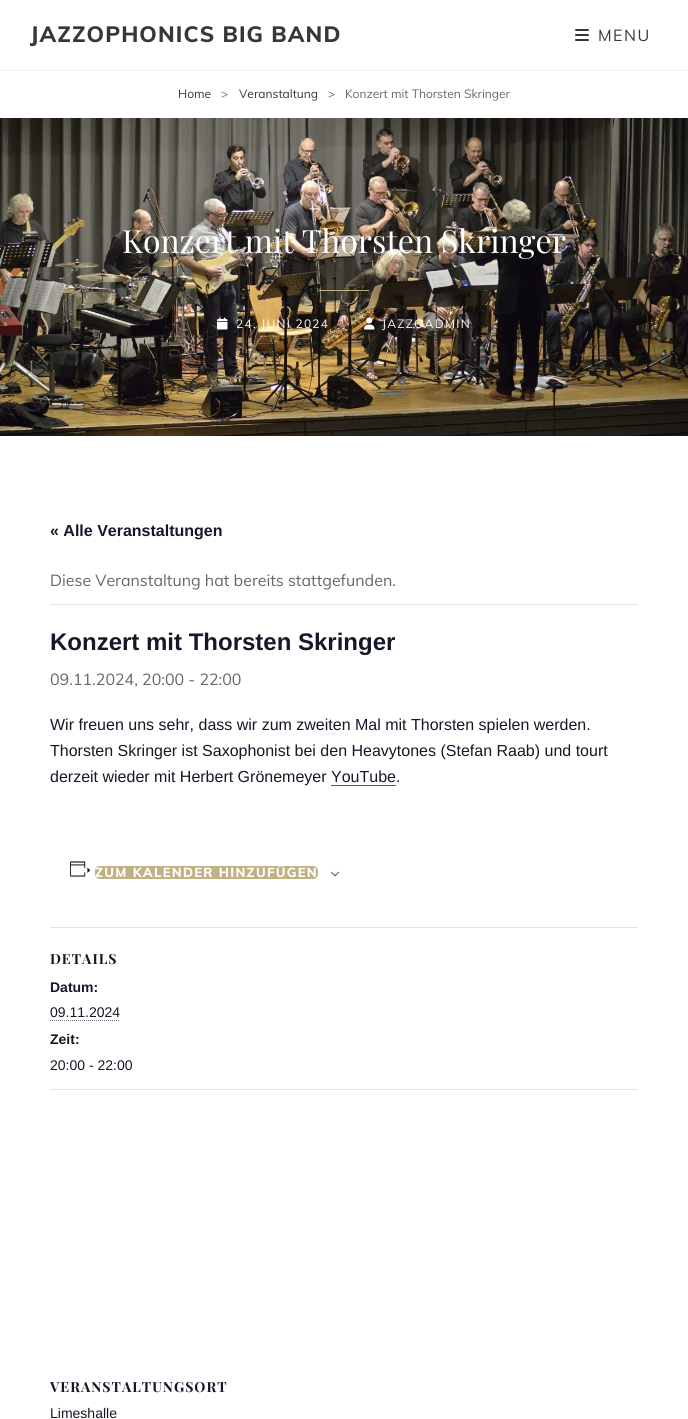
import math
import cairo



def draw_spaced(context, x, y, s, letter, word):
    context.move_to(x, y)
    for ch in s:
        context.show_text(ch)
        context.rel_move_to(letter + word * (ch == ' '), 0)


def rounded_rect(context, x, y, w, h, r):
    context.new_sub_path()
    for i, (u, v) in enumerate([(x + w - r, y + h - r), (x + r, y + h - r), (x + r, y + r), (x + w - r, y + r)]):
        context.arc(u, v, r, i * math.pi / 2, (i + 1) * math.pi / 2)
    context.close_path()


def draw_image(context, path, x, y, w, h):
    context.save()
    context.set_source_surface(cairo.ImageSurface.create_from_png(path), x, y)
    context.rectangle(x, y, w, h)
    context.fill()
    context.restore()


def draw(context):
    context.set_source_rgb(1, 1, 1)
    context.paint()
    context.set_source_rgb(244 / 255, 244 / 255, 244 / 255)
    context.rectangle(0, 70, 688, 1)
    context.fill()
    draw_image(context, "images/1.png", 575, 29, 14, 12)
    draw_image(context, "images/2.png", 0, 118, 688, 318)
    context.set_source_rgb(192 / 255, 178 / 255, 131 / 255)
    context.rectangle(319, 290, 50, 1)
    context.fill()
    draw_image(context, "images/3.png", 217, 317, 11, 13)
    draw_image(context, "images/4.png", 364, 317, 11, 13)
    context.set_source_rgb(228 / 255, 228 / 255, 228 / 255)
    context.rectangle(50, 604, 588, 1)
    context.fill()
    draw_image(context, "images/5.png", 70, 861, 21, 16)
    context.set_source_rgb(192 / 255, 178 / 255, 131 / 255)
    rounded_rect(context, 95, 866, 223, 13, 5)
    context.fill()
    draw_image(context, "images/6.png", 330, 871, 10, 6)
    context.set_source_rgb(228 / 255, 228 / 255, 228 / 255)
    context.rectangle(50, 927, 588, 1)
    context.fill()
    context.new_path()
    context.move_to(50, 1020.5)
    context.line_to(120, 1020.5)
    context.set_source_rgb(118 / 255, 118 / 255, 118 / 255)
    context.set_line_width(1)
    context.set_dash([1, 1])
    context.stroke()
    context.set_source_rgb(228 / 255, 228 / 255, 228 / 255)
    context.rectangle(50, 1089, 588, 1)
    context.fill()
    context.select_font_face("Muli ExtraBold")
    context.set_font_size(22)
    context.set_source_rgb(55 / 255, 55 / 255, 55 / 255)
    draw_spaced(context, 30, 42, "JAZZOPHONICS BIG BAND", 1.1, 0)
    context.select_font_face("Muli")
    context.set_font_size(16)
    draw_spaced(context, 598, 41, "MENU", 1.5, 0)
    context.set_font_size(12)
    context.move_to(178, 98)
    context.show_text("Home")
    context.set_source_rgb(103 / 255, 103 / 255, 103 / 255)
    context.move_to(221, 98)
    context.show_text(">")
    context.set_source_rgb(55 / 255, 55 / 255, 55 / 255)
    context.move_to(239, 98)
    context.show_text("Veranstaltung")
    context.set_source_rgb(103 / 255, 103 / 255, 103 / 255)
    context.move_to(328, 98)
    context.show_text(">")
    context.move_to(345, 98)
    context.show_text("Konzert mit Thorsten Skringer")
    context.select_font_face("Playfair Display")
    context.set_font_size(32)
    context.set_source_rgb(1, 1, 1)
    context.move_to(122, 253)
    context.show_text("Konzert mit Thorsten Skringer")
    context.select_font_face("Muli")
    context.set_font_size(12)
    draw_spaced(context, 236, 328, "24. JUNI 2024", 1.25, 0)
    draw_spaced(context, 382, 328, "JAZZOADMIN", 1.25, 0)
    context.select_font_face("Liberation Sans", cairo.FontSlant.NORMAL, cairo.FontWeight.BOLD)
    context.set_font_size(16)
    context.set_source_rgb(20 / 255, 24 / 255, 39 / 255)
    context.move_to(50, 536)
    context.show_text("« Alle Veranstaltungen")
    context.select_font_face("Muli")
    context.set_source_rgb(103 / 255, 103 / 255, 103 / 255)
    context.move_to(50, 586)
    context.show_text("Diese Veranstaltung hat bereits stattgefunden.")
    context.select_font_face("Liberation Sans", cairo.FontSlant.NORMAL, cairo.FontWeight.BOLD)
    context.set_font_size(24)
    context.set_source_rgb(20 / 255, 24 / 255, 39 / 255)
    context.move_to(50, 650)
    context.show_text("Konzert mit Thorsten Skringer")
    context.select_font_face("Muli")
    context.set_font_size(16)
    context.set_source_rgb(103 / 255, 103 / 255, 103 / 255)
    context.move_to(50, 685)
    context.show_text("09.11.2024, 20:00 - 22:00")
    context.select_font_face("Liberation Sans")
    context.set_source_rgb(20 / 255, 24 / 255, 39 / 255)
    context.move_to(50, 730)
    context.show_text("Wir freuen uns sehr, dass wir zum zweiten Mal mit Thorsten spielen werden.")
    context.move_to(50, 756)
    context.show_text("Thorsten Skringer ist Saxophonist bei den Heavytones (Stefan Raab) und tourt")
    context.move_to(50, 782)
    context.show_text("derzeit wieder mit Herbert Grönemeyer YouTube.")
    context.set_source_rgb(51 / 255, 74 / 255, 1)
    context.rectangle(331, 785, 65, 1)
    context.fill()
    context.select_font_face("Muli ExtraBold")
    context.set_font_size(13)
    context.set_source_rgb(1, 1, 1)
    draw_spaced(context, 95, 877, "ZUM KALENDER HINZUFÜGEN", 1.3, 0)
    context.select_font_face("Playfair Display", cairo.FontSlant.NORMAL, cairo.FontWeight.BOLD)
    context.set_font_size(14)
    context.set_source_rgb(20 / 255, 24 / 255, 39 / 255)
    draw_spaced(context, 50, 964, "DETAILS", 1, 0)
    context.select_font_face("Liberation Sans", cairo.FontSlant.NORMAL, cairo.FontWeight.BOLD)
    context.move_to(50, 992)
    context.show_text("Datum:")
    context.select_font_face("Liberation Sans")
    context.move_to(50, 1017)
    context.show_text("09.11.2024")
    context.select_font_face("Liberation Sans", cairo.FontSlant.NORMAL, cairo.FontWeight.BOLD)
    context.move_to(50, 1044)
    context.show_text("Zeit:")
    context.select_font_face("Liberation Sans")
    context.move_to(50, 1070)
    context.show_text("20:00 - 22:00")
    context.select_font_face("Playfair Display", cairo.FontSlant.NORMAL, cairo.FontWeight.BOLD)
    draw_spaced(context, 50, 1392, "VERANSTALTUNGSORT", 1, 0)
    context.select_font_face("Liberation Sans")
    context.move_to(50, 1418)
    context.show_text("Limeshalle")


surface = cairo.ImageSurface(cairo.Format.RGB24, 688, 1419)
context = cairo.Context(surface)
options = cairo.FontOptions()
options.set_hint_metrics(cairo.HintMetrics.OFF)
options.set_hint_style(cairo.HintStyle.NONE)
context.set_font_options(options)
context.set_miter_limit(4)
draw(context)
surface.write_to_png("out.png")
